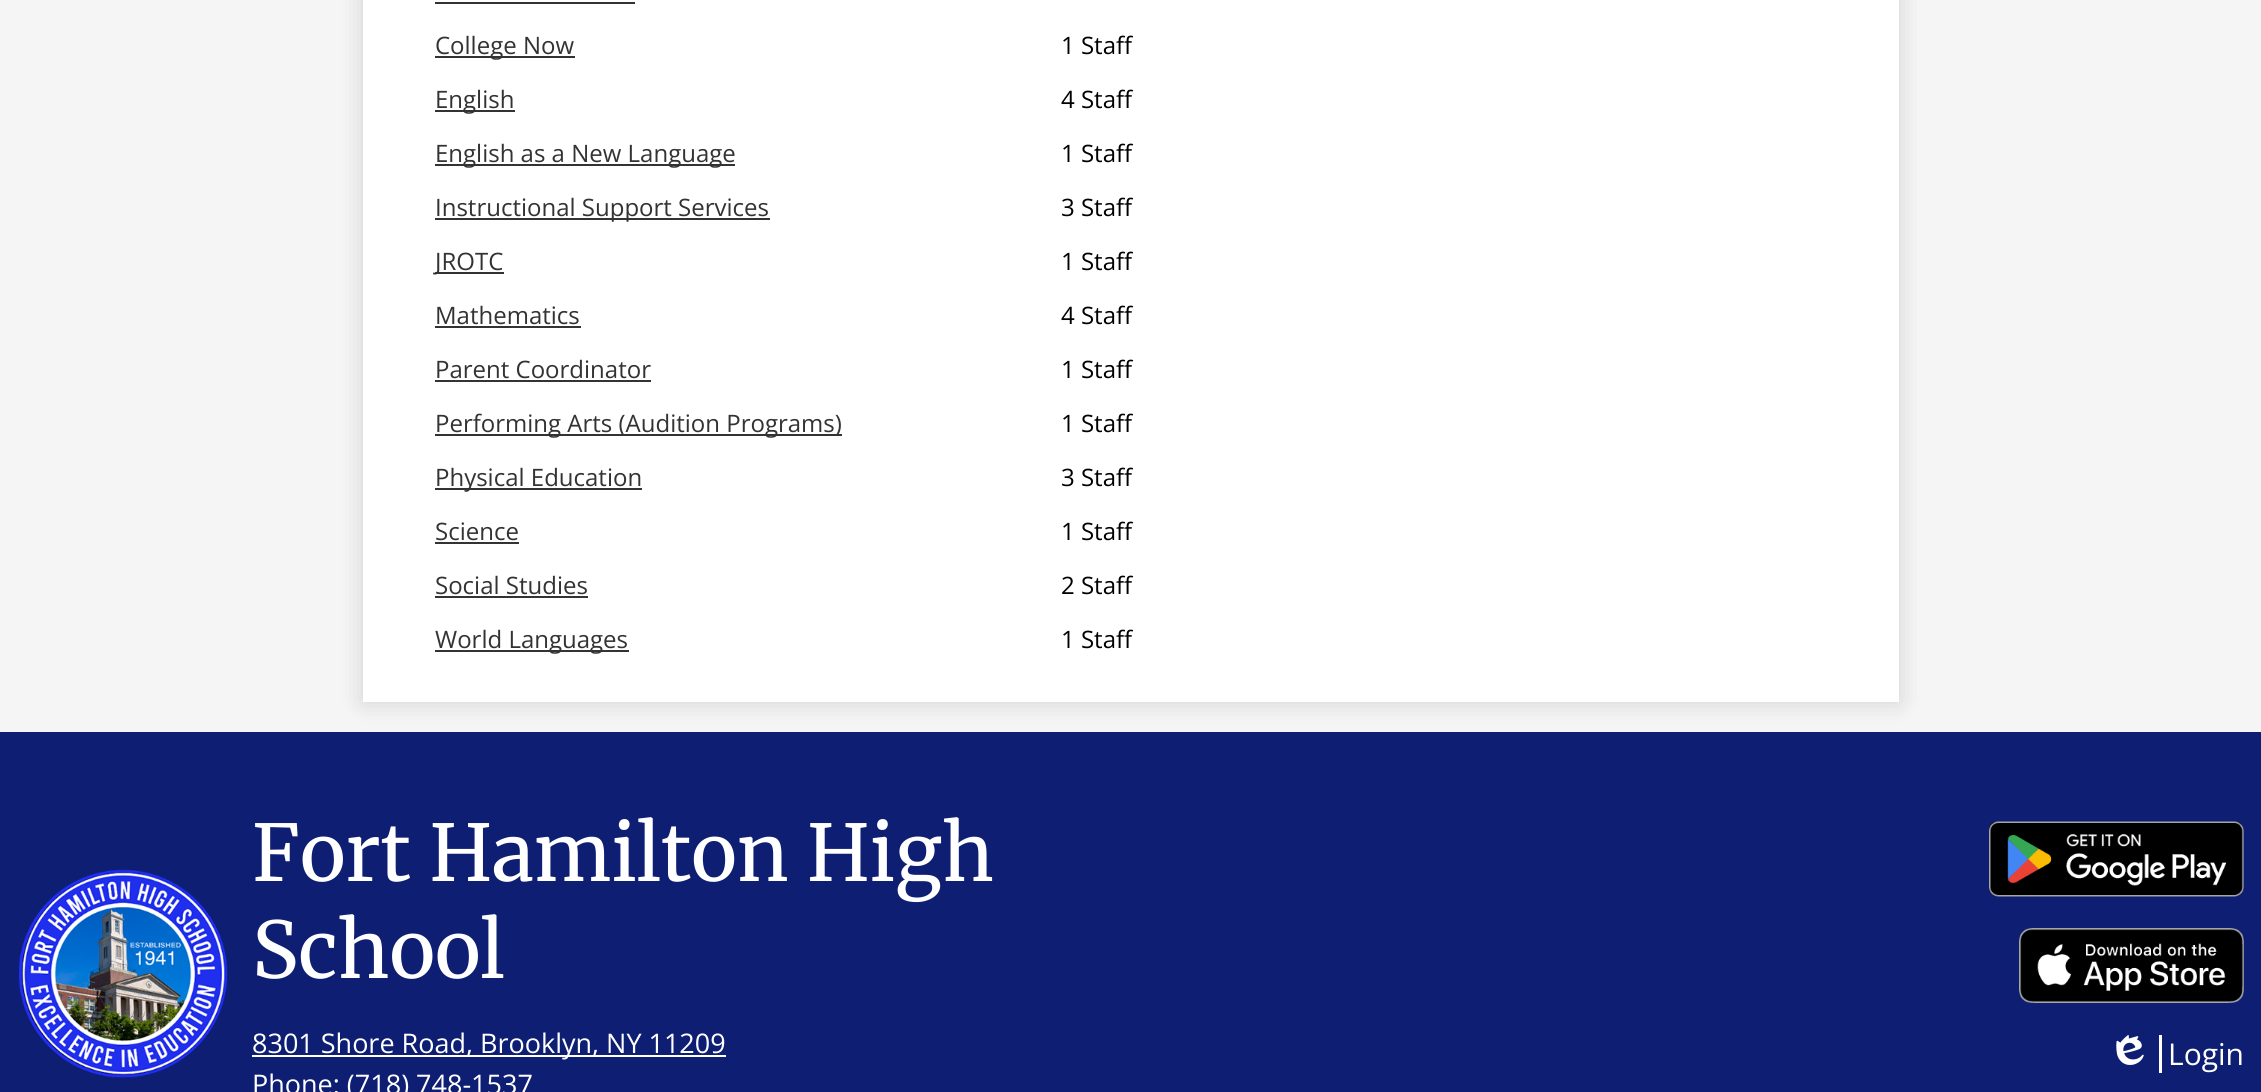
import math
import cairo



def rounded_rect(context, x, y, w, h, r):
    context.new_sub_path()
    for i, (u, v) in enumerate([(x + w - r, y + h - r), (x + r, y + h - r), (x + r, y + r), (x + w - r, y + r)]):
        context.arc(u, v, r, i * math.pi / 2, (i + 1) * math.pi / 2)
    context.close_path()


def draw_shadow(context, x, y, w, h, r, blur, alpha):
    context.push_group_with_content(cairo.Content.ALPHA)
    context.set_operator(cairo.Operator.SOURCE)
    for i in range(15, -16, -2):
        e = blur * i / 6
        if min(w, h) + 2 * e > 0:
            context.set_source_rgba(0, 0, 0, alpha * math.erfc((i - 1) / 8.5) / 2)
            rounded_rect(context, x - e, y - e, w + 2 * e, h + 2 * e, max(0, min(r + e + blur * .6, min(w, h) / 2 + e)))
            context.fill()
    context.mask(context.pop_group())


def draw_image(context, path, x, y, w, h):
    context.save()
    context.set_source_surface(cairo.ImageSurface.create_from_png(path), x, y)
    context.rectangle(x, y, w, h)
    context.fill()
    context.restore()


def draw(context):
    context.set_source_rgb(245 / 255, 245 / 255, 245 / 255)
    context.paint()
    context.set_source_rgb(14 / 255, 31 / 255, 115 / 255)
    context.rectangle(0, 732, 2261, 360)
    context.fill()
    context.set_source_rgb(0, 0, 0)
    draw_shadow(context, 363, -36, 1536, 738, 0, 12, 0.15)
    context.set_source_rgb(1, 1, 1)
    context.rectangle(363, 0, 1536, 702)
    context.fill()
    context.set_source_rgb(51 / 255, 51 / 255, 51 / 255)
    context.rectangle(435, 2, 200, 2)
    context.fill()
    context.rectangle(435, 56, 140, 2)
    context.fill()
    context.rectangle(435, 110, 80, 2)
    context.fill()
    context.rectangle(435, 164, 300, 2)
    context.fill()
    context.rectangle(435, 218, 335, 2)
    context.fill()
    context.rectangle(435, 272, 69, 2)
    context.fill()
    context.rectangle(435, 326, 146, 2)
    context.fill()
    context.rectangle(435, 380, 216, 2)
    context.fill()
    context.rectangle(435, 434, 407, 2)
    context.fill()
    context.rectangle(435, 488, 207, 2)
    context.fill()
    context.rectangle(435, 542, 84, 2)
    context.fill()
    context.rectangle(435, 596, 153, 2)
    context.fill()
    context.rectangle(435, 650, 194, 2)
    context.fill()
    draw_image(context, "images/1.png", 18, 869, 210, 209)
    context.set_source_rgb(1, 1, 1)
    context.rectangle(252, 1055, 474, 2)
    context.fill()
    draw_image(context, "images/2.png", 1989, 821, 255, 76)
    draw_image(context, "images/3.png", 2019, 928, 225, 75)
    context.rectangle(2159, 1035, 3, 38)
    context.fill()
    draw_image(context, "images/4.png", 2116, 1035, 28, 30)
    context.select_font_face("Open Sans")
    context.set_font_size(24)
    context.set_source_rgb(51 / 255, 51 / 255, 51 / 255)
    context.move_to(435, 54)
    context.show_text("College Now")
    context.set_source_rgb(0, 0, 0)
    context.move_to(1061, 54)
    context.show_text("1 Staff")
    context.set_source_rgb(51 / 255, 51 / 255, 51 / 255)
    context.move_to(435, 108)
    context.show_text("English")
    context.set_source_rgb(0, 0, 0)
    context.move_to(1061, 108)
    context.show_text("4 Staff")
    context.set_source_rgb(51 / 255, 51 / 255, 51 / 255)
    context.move_to(435, 162)
    context.show_text("English as a New Language")
    context.set_source_rgb(0, 0, 0)
    context.move_to(1061, 162)
    context.show_text("1 Staff")
    context.set_source_rgb(51 / 255, 51 / 255, 51 / 255)
    context.move_to(435, 216)
    context.show_text("Instructional Support Services")
    context.set_source_rgb(0, 0, 0)
    context.move_to(1061, 216)
    context.show_text("3 Staff")
    context.set_source_rgb(51 / 255, 51 / 255, 51 / 255)
    context.move_to(435, 270)
    context.show_text("JROTC")
    context.set_source_rgb(0, 0, 0)
    context.move_to(1061, 270)
    context.show_text("1 Staff")
    context.set_source_rgb(51 / 255, 51 / 255, 51 / 255)
    context.move_to(435, 324)
    context.show_text("Mathematics")
    context.set_source_rgb(0, 0, 0)
    context.move_to(1061, 324)
    context.show_text("4 Staff")
    context.set_source_rgb(51 / 255, 51 / 255, 51 / 255)
    context.move_to(435, 378)
    context.show_text("Parent Coordinator")
    context.set_source_rgb(0, 0, 0)
    context.move_to(1061, 378)
    context.show_text("1 Staff")
    context.set_source_rgb(51 / 255, 51 / 255, 51 / 255)
    context.move_to(435, 432)
    context.show_text("Performing Arts (Audition Programs)")
    context.set_source_rgb(0, 0, 0)
    context.move_to(1061, 432)
    context.show_text("1 Staff")
    context.set_source_rgb(51 / 255, 51 / 255, 51 / 255)
    context.move_to(435, 486)
    context.show_text("Physical Education")
    context.set_source_rgb(0, 0, 0)
    context.move_to(1061, 486)
    context.show_text("3 Staff")
    context.set_source_rgb(51 / 255, 51 / 255, 51 / 255)
    context.move_to(435, 540)
    context.show_text("Science")
    context.set_source_rgb(0, 0, 0)
    context.move_to(1061, 540)
    context.show_text("1 Staff")
    context.set_source_rgb(51 / 255, 51 / 255, 51 / 255)
    context.move_to(435, 594)
    context.show_text("Social Studies")
    context.set_source_rgb(0, 0, 0)
    context.move_to(1061, 594)
    context.show_text("2 Staff")
    context.set_source_rgb(51 / 255, 51 / 255, 51 / 255)
    context.move_to(435, 648)
    context.show_text("World Languages")
    context.set_source_rgb(0, 0, 0)
    context.move_to(1061, 648)
    context.show_text("1 Staff")
    context.select_font_face("Merriweather")
    context.set_font_size(78)
    context.set_source_rgb(1, 1, 1)
    context.move_to(252, 881)
    context.show_text("Fort Hamilton High")
    context.move_to(252, 978)
    context.show_text("School")
    context.select_font_face("Open Sans")
    context.set_font_size(27)
    context.move_to(252, 1053)
    context.show_text("8301 Shore Road, Brooklyn, NY 11209")
    context.move_to(252, 1094)
    context.show_text("Phone: (718) 748-1537")
    context.set_font_size(30)
    context.move_to(2168, 1065)
    context.show_text("Login")


surface = cairo.ImageSurface(cairo.Format.RGB24, 2261, 1092)
context = cairo.Context(surface)
options = cairo.FontOptions()
options.set_hint_metrics(cairo.HintMetrics.OFF)
options.set_hint_style(cairo.HintStyle.NONE)
context.set_font_options(options)
context.set_miter_limit(4)
draw(context)
surface.write_to_png("out.png")
